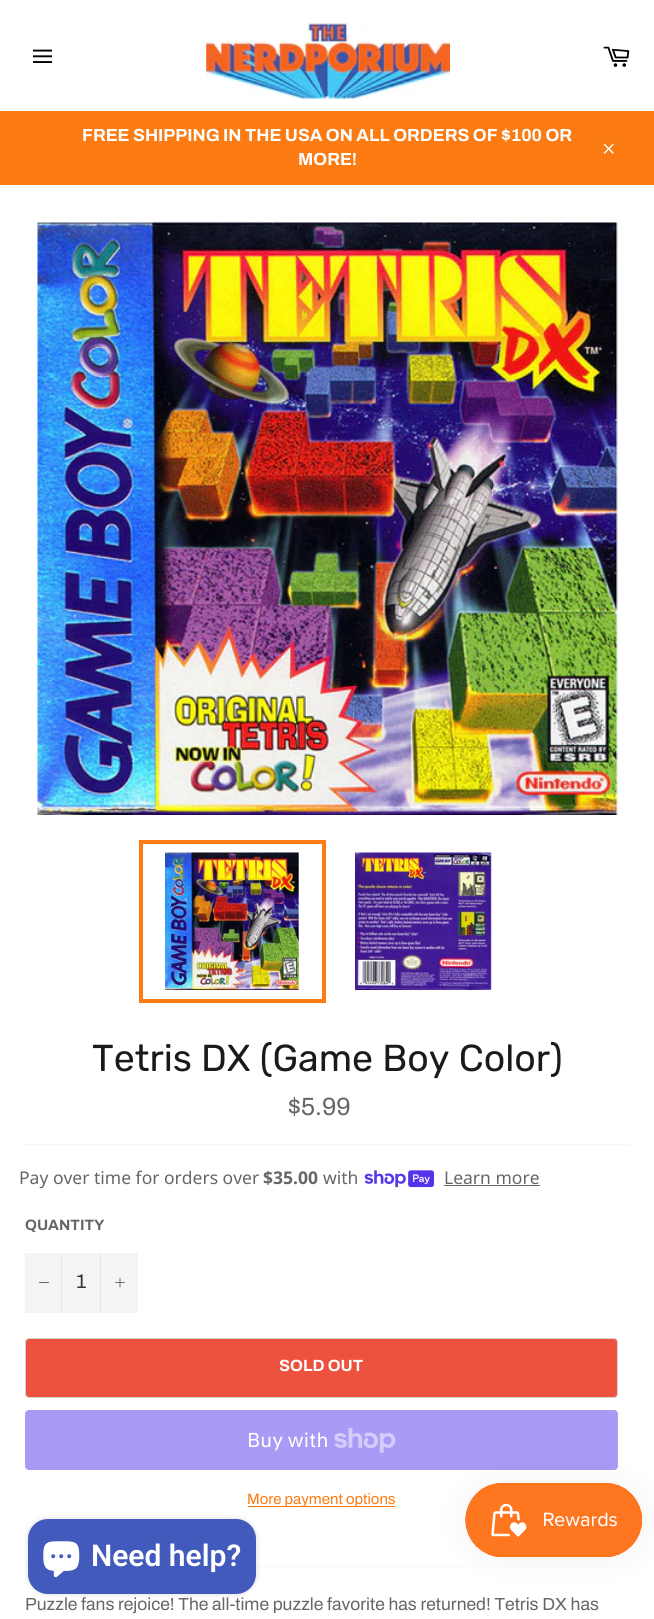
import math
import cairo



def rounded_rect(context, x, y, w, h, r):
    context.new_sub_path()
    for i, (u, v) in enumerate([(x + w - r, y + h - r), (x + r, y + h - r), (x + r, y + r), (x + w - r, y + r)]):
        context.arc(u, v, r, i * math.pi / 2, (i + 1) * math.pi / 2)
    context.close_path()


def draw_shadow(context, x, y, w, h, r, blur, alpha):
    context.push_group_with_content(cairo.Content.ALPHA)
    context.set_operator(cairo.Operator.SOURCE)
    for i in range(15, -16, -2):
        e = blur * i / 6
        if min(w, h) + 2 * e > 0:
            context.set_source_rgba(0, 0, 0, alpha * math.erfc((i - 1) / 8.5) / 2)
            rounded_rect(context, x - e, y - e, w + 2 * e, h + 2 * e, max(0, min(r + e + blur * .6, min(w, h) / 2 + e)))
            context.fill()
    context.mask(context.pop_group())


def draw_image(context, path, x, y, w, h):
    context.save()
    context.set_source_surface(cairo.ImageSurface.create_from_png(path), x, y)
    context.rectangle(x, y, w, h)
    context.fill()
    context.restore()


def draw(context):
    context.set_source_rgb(1, 1, 1)
    context.paint()
    draw_image(context, "images/1.png", 32, 49, 21, 14)
    draw_image(context, "images/2.png", 206, 22, 244, 77)
    draw_image(context, "images/3.png", 603, 46, 27, 21)
    context.set_source_rgb(252 / 255, 123 / 255, 19 / 255)
    context.rectangle(0, 111, 654, 74)
    context.fill()
    draw_image(context, "images/4.png", 603, 143, 11, 11)
    draw_image(context, "images/5.png", 37, 222, 581, 593)
    draw_image(context, "images/6.png", 165, 852, 134, 138)
    context.rectangle(141, 842, 183, 159)
    context.set_line_width(4)
    context.stroke()
    draw_image(context, "images/7.png", 355, 852, 137, 138)
    context.set_source_rgb(247 / 255, 247 / 255, 247 / 255)
    context.rectangle(25, 1144, 605, 1)
    context.fill()
    draw_image(context, "images/8.png", 364, 1170, 70, 18)
    context.set_source_rgb(102 / 255, 102 / 255, 102 / 255)
    context.rectangle(444, 1185, 96, 1)
    context.fill()
    context.set_source_rgb(244 / 255, 244 / 255, 244 / 255)
    context.rectangle(25, 1253, 113, 60)
    context.fill()
    context.set_source_rgb(231 / 255, 231 / 255, 231 / 255)
    context.rectangle(61, 1253, 1, 60)
    context.fill()
    context.set_source_rgb(102 / 255, 102 / 255, 102 / 255)
    context.rectangle(39, 1282, 10, 1)
    context.fill()
    context.set_source_rgb(231 / 255, 231 / 255, 231 / 255)
    context.rectangle(100, 1253, 1, 60)
    context.fill()
    draw_image(context, "images/9.png", 115, 1278, 10, 10)
    context.set_source_rgb(236 / 255, 82 / 255, 62 / 255)
    rounded_rect(context, 25.5, 1338.5, 592, 59, 3.5)
    context.fill_preserve()
    context.set_source_rgb(213 / 255, 213 / 255, 213 / 255)
    context.set_line_width(1)
    context.stroke()
    context.set_source_rgb(170 / 255, 153 / 255, 245 / 255)
    rounded_rect(context, 25, 1410, 593, 60, 4)
    context.fill()
    draw_image(context, "images/10.png", 334, 1428, 62, 25)
    context.set_source_rgb(252 / 255, 123 / 255, 19 / 255)
    context.rectangle(248, 1506, 147, 1)
    context.fill()
    context.set_source_rgb(247 / 255, 247 / 255, 247 / 255)
    context.rectangle(25, 1566, 605, 1)
    context.fill()
    context.set_source_rgb(0, 0, 0)
    draw_shadow(context, 28, 1519, 228, 75, 20, 3, 0.15)
    context.set_source_rgb(66 / 255, 90 / 255, 188 / 255)
    rounded_rect(context, 28, 1519, 228, 75, 20)
    context.fill()
    draw_image(context, "images/11.png", 43, 1541, 37, 37)
    context.set_source_rgb(0, 0, 0)
    draw_shadow(context, 465, 1483, 178, 75, 37.5, 15.5, 0.05)
    draw_image(context, "images/12.png", 465, 1482, 178, 76)
    context.select_font_face("Archivo", cairo.FontSlant.NORMAL, cairo.FontWeight.BOLD)
    context.set_font_size(17.5)
    context.set_source_rgb(1, 1, 1)
    context.move_to(82, 141)
    context.show_text("FREE SHIPPING IN THE USA ON ALL ORDERS OF $100 OR")
    context.move_to(298, 165)
    context.show_text("MORE!")
    context.select_font_face("Rubik")
    context.set_font_size(37.5)
    context.set_source_rgb(26 / 255, 26 / 255, 26 / 255)
    context.move_to(92, 1071)
    context.show_text("Tetris DX (Game Boy Color)")
    context.select_font_face("Archivo")
    context.set_font_size(25)
    context.set_source_rgb(102 / 255, 102 / 255, 102 / 255)
    context.move_to(288, 1115)
    context.show_text("$5.99")
    context.select_font_face("Noto Sans")
    context.set_font_size(17.5)
    context.move_to(19, 1184)
    context.show_text("Pay over time for orders over")
    context.select_font_face("Noto Sans", cairo.FontSlant.NORMAL, cairo.FontWeight.BOLD)
    context.move_to(263, 1184)
    context.show_text("$35.00")
    context.select_font_face("Noto Sans")
    context.move_to(323, 1184)
    context.show_text("with")
    context.move_to(444, 1184)
    context.show_text("Learn more")
    context.select_font_face("Archivo", cairo.FontSlant.NORMAL, cairo.FontWeight.BOLD)
    context.set_font_size(15)
    context.move_to(25, 1230)
    context.show_text("QUANTITY")
    context.select_font_face("Archivo")
    context.set_font_size(20)
    context.set_source_rgb(51 / 255, 51 / 255, 51 / 255)
    context.move_to(76, 1288)
    context.show_text("1")
    context.select_font_face("Archivo", cairo.FontSlant.NORMAL, cairo.FontWeight.BOLD)
    context.set_font_size(16.25)
    context.set_source_rgb(1, 1, 1)
    context.move_to(279, 1371)
    context.show_text("SOLD OUT")
    context.select_font_face("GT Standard")
    context.set_font_size(20)
    context.move_to(247, 1447)
    context.show_text("Buy with")
    context.select_font_face("Archivo")
    context.set_font_size(15)
    context.set_source_rgb(252 / 255, 123 / 255, 19 / 255)
    context.move_to(247, 1504)
    context.show_text("More payment options")
    context.set_font_size(17.5)
    context.set_source_rgb(102 / 255, 102 / 255, 102 / 255)
    context.move_to(25, 1610)
    context.show_text("Puzzle fans rejoice! The all-time puzzle favorite has returned! Tetris DX has")
    context.select_font_face("Roboto SemiBold")
    context.set_font_size(30)
    context.set_source_rgb(1, 1, 1)
    context.move_to(91, 1566)
    context.show_text("Need help?")


surface = cairo.ImageSurface(cairo.Format.RGB24, 654, 1619)
context = cairo.Context(surface)
options = cairo.FontOptions()
options.set_hint_metrics(cairo.HintMetrics.OFF)
options.set_hint_style(cairo.HintStyle.NONE)
context.set_font_options(options)
context.set_miter_limit(4)
draw(context)
surface.write_to_png("out.png")
